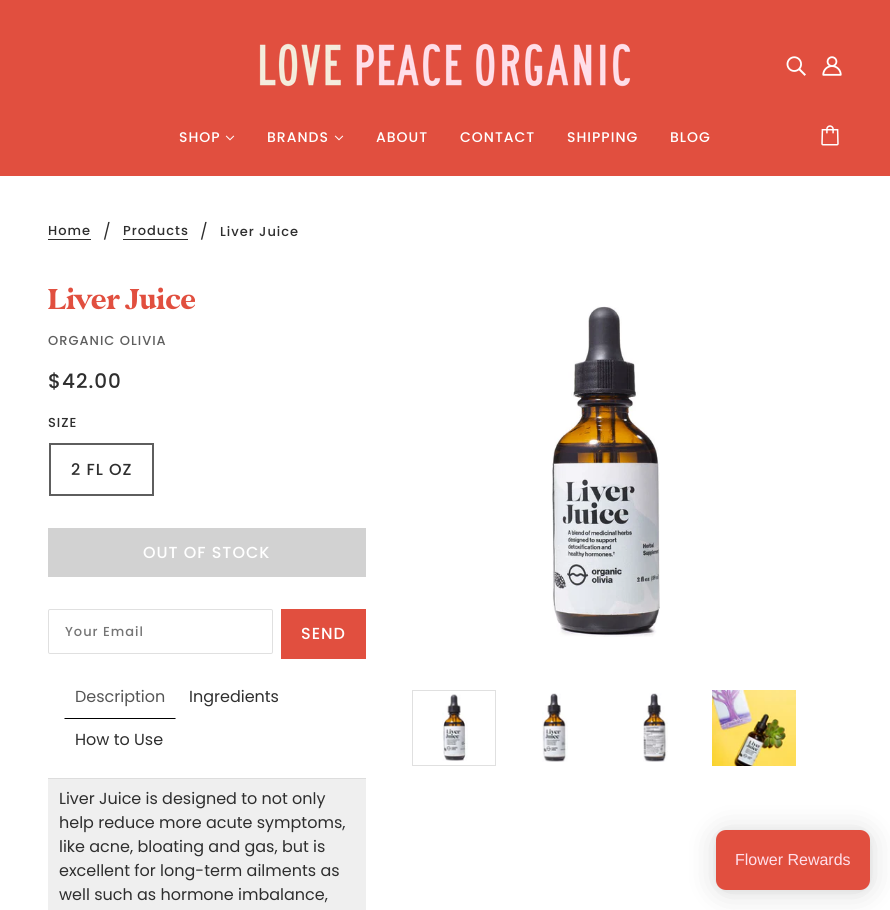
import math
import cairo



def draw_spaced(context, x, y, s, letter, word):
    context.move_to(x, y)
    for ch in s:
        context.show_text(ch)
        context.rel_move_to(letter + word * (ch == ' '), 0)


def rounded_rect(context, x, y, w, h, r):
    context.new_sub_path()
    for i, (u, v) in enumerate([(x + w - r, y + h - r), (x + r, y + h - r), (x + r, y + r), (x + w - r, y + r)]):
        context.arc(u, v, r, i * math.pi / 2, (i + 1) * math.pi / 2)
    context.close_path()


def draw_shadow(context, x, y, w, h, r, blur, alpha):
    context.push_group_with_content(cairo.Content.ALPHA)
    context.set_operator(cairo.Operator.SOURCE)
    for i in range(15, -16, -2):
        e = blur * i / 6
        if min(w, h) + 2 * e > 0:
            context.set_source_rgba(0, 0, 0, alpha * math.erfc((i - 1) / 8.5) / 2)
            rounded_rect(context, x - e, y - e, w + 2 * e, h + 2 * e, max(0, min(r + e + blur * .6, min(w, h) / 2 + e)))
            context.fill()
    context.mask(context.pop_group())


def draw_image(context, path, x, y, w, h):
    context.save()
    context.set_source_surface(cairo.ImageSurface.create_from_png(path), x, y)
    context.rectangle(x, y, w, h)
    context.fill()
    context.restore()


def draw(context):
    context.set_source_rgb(1, 1, 1)
    context.paint()
    context.set_source_rgb(225 / 255, 79 / 255, 63 / 255)
    context.rectangle(0, 0, 890, 176)
    context.fill()
    draw_image(context, "images/1.png", 259, 43, 372, 44)
    draw_image(context, "images/2.png", 786, 56, 20, 20)
    draw_image(context, "images/3.png", 822, 56, 20, 20)
    draw_image(context, "images/4.png", 225, 135, 10, 6)
    draw_image(context, "images/4.png", 334, 135, 10, 6)
    draw_image(context, "images/5.png", 821, 125, 18, 21)
    context.set_source_rgb(46 / 255, 46 / 255, 46 / 255)
    context.rectangle(48, 239, 43, 1)
    context.fill()
    context.rectangle(123, 239, 65, 1)
    context.fill()
    draw_image(context, "images/6.png", 552, 306, 108, 331)
    context.rectangle(412.5, 690.5, 83, 75)
    context.set_source_rgb(224 / 255, 224 / 255, 224 / 255)
    context.set_line_width(1)
    context.stroke()
    draw_image(context, "images/7.png", 442, 694, 26, 67)
    draw_image(context, "images/8.png", 542, 693, 26, 69)
    draw_image(context, "images/9.png", 643, 693, 25, 69)
    draw_image(context, "images/10.png", 712, 690, 84, 76)
    context.rectangle(50, 444, 103, 51)
    context.set_source_rgb(94 / 255, 94 / 255, 94 / 255)
    context.set_line_width(2)
    context.stroke()
    context.set_source_rgb(210 / 255, 210 / 255, 210 / 255)
    context.rectangle(48, 528, 318, 49)
    context.fill()
    rounded_rect(context, 48.5, 609.5, 224, 44, 1.5)
    context.set_source_rgb(224 / 255, 224 / 255, 224 / 255)
    context.set_line_width(1)
    context.stroke()
    context.set_source_rgb(225 / 255, 79 / 255, 63 / 255)
    context.rectangle(281, 609, 85, 50)
    context.fill()
    context.set_source_rgb(221 / 255, 221 / 255, 221 / 255)
    context.rectangle(48, 778, 318, 1)
    context.fill()
    context.set_source_rgb(0, 0, 0)
    context.new_path()
    context.move_to(176, 719)
    context.line_to(175, 718)
    context.line_to(65, 718)
    context.line_to(64, 719)
    context.close_path()
    context.fill()
    context.set_source_rgb(239 / 255, 239 / 255, 239 / 255)
    context.rectangle(48, 779, 318, 131)
    context.fill()
    context.set_source_rgb(0, 0, 0)
    draw_shadow(context, 716, 832, 154, 60, 10, 15, 0.15)
    draw_shadow(context, 716, 831, 154, 60, 10, 3, 0.05)
    context.set_source_rgb(225 / 255, 79 / 255, 63 / 255)
    rounded_rect(context, 716, 830, 154, 60, 10)
    context.fill()
    context.select_font_face("Poppins Medium")
    context.set_font_size(14)
    context.set_source_rgb(1, 1, 1)
    draw_spaced(context, 179, 142, "SHOP", 1, 0)
    draw_spaced(context, 267, 142, "BRANDS", 1, 0)
    draw_spaced(context, 376, 142, "ABOUT", 1, 0)
    draw_spaced(context, 460, 142, "CONTACT", 1, 0)
    draw_spaced(context, 567, 142, "SHIPPING", 1, 0)
    draw_spaced(context, 670, 142, "BLOG", 1, 0)
    context.set_font_size(13)
    context.set_source_rgb(46 / 255, 46 / 255, 46 / 255)
    draw_spaced(context, 48, 235, "Home", 1, 0)
    context.select_font_face("Poppins")
    context.set_font_size(16)
    context.move_to(103, 237)
    context.show_text("/")
    context.select_font_face("Poppins Medium")
    context.set_font_size(13)
    draw_spaced(context, 123, 235, "Products", 1, 0)
    context.select_font_face("Poppins")
    context.set_font_size(16)
    context.move_to(200, 237)
    context.show_text("/")
    context.select_font_face("Poppins Medium")
    context.set_font_size(13)
    draw_spaced(context, 220, 236, "Liver Juice", 1, 0)
    context.select_font_face("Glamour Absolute")
    context.set_font_size(32)
    context.set_source_rgb(225 / 255, 79 / 255, 63 / 255)
    context.move_to(48, 309)
    context.show_text("Liver Juice")
    context.select_font_face("Poppins Medium")
    context.set_font_size(13)
    context.set_source_rgb(94 / 255, 94 / 255, 94 / 255)
    draw_spaced(context, 48, 345, "ORGANIC OLIVIA", 1, 0)
    context.set_font_size(20)
    context.set_source_rgb(46 / 255, 46 / 255, 46 / 255)
    draw_spaced(context, 48, 388, "$42.00", 1, 0)
    context.set_font_size(13)
    draw_spaced(context, 48, 427, "SIZE", 1, 0)
    context.set_font_size(16)
    draw_spaced(context, 71, 475, "2 FL OZ", 1, 0)
    context.set_source_rgb(1, 1, 1)
    draw_spaced(context, 143, 558, "OUT OF STOCK", 1, 0)
    context.set_font_size(13)
    context.set_source_rgb(117 / 255, 117 / 255, 117 / 255)
    draw_spaced(context, 65, 636, "Your Email", 1, 0)
    context.set_font_size(16)
    context.set_source_rgb(1, 1, 1)
    draw_spaced(context, 301, 639, "SEND", 1, 0)
    context.select_font_face("Poppins")
    context.set_source_rgb(85 / 255, 85 / 255, 85 / 255)
    context.move_to(75, 702)
    context.show_text("Description")
    context.set_source_rgb(46 / 255, 46 / 255, 46 / 255)
    context.move_to(189, 702)
    context.show_text("Ingredients")
    context.move_to(75, 745)
    context.show_text("How to Use")
    context.move_to(59, 804)
    context.show_text("Liver Juice is designed to not only")
    context.move_to(59, 828)
    context.show_text("help reduce more acute symptoms,")
    context.move_to(59, 852)
    context.show_text("like acne, bloating and gas, but is")
    context.move_to(59, 876)
    context.show_text("excellent for long-term ailments as")
    context.move_to(59, 900)
    context.show_text("well such as hormone imbalance,")
    context.select_font_face("Liberation Sans")
    context.set_source_rgb(1, 223 / 255, 234 / 255)
    context.move_to(735, 865)
    context.show_text("Flower Rewards")


surface = cairo.ImageSurface(cairo.Format.RGB24, 890, 910)
context = cairo.Context(surface)
options = cairo.FontOptions()
options.set_hint_metrics(cairo.HintMetrics.OFF)
options.set_hint_style(cairo.HintStyle.NONE)
context.set_font_options(options)
context.set_miter_limit(4)
draw(context)
surface.write_to_png("out.png")
